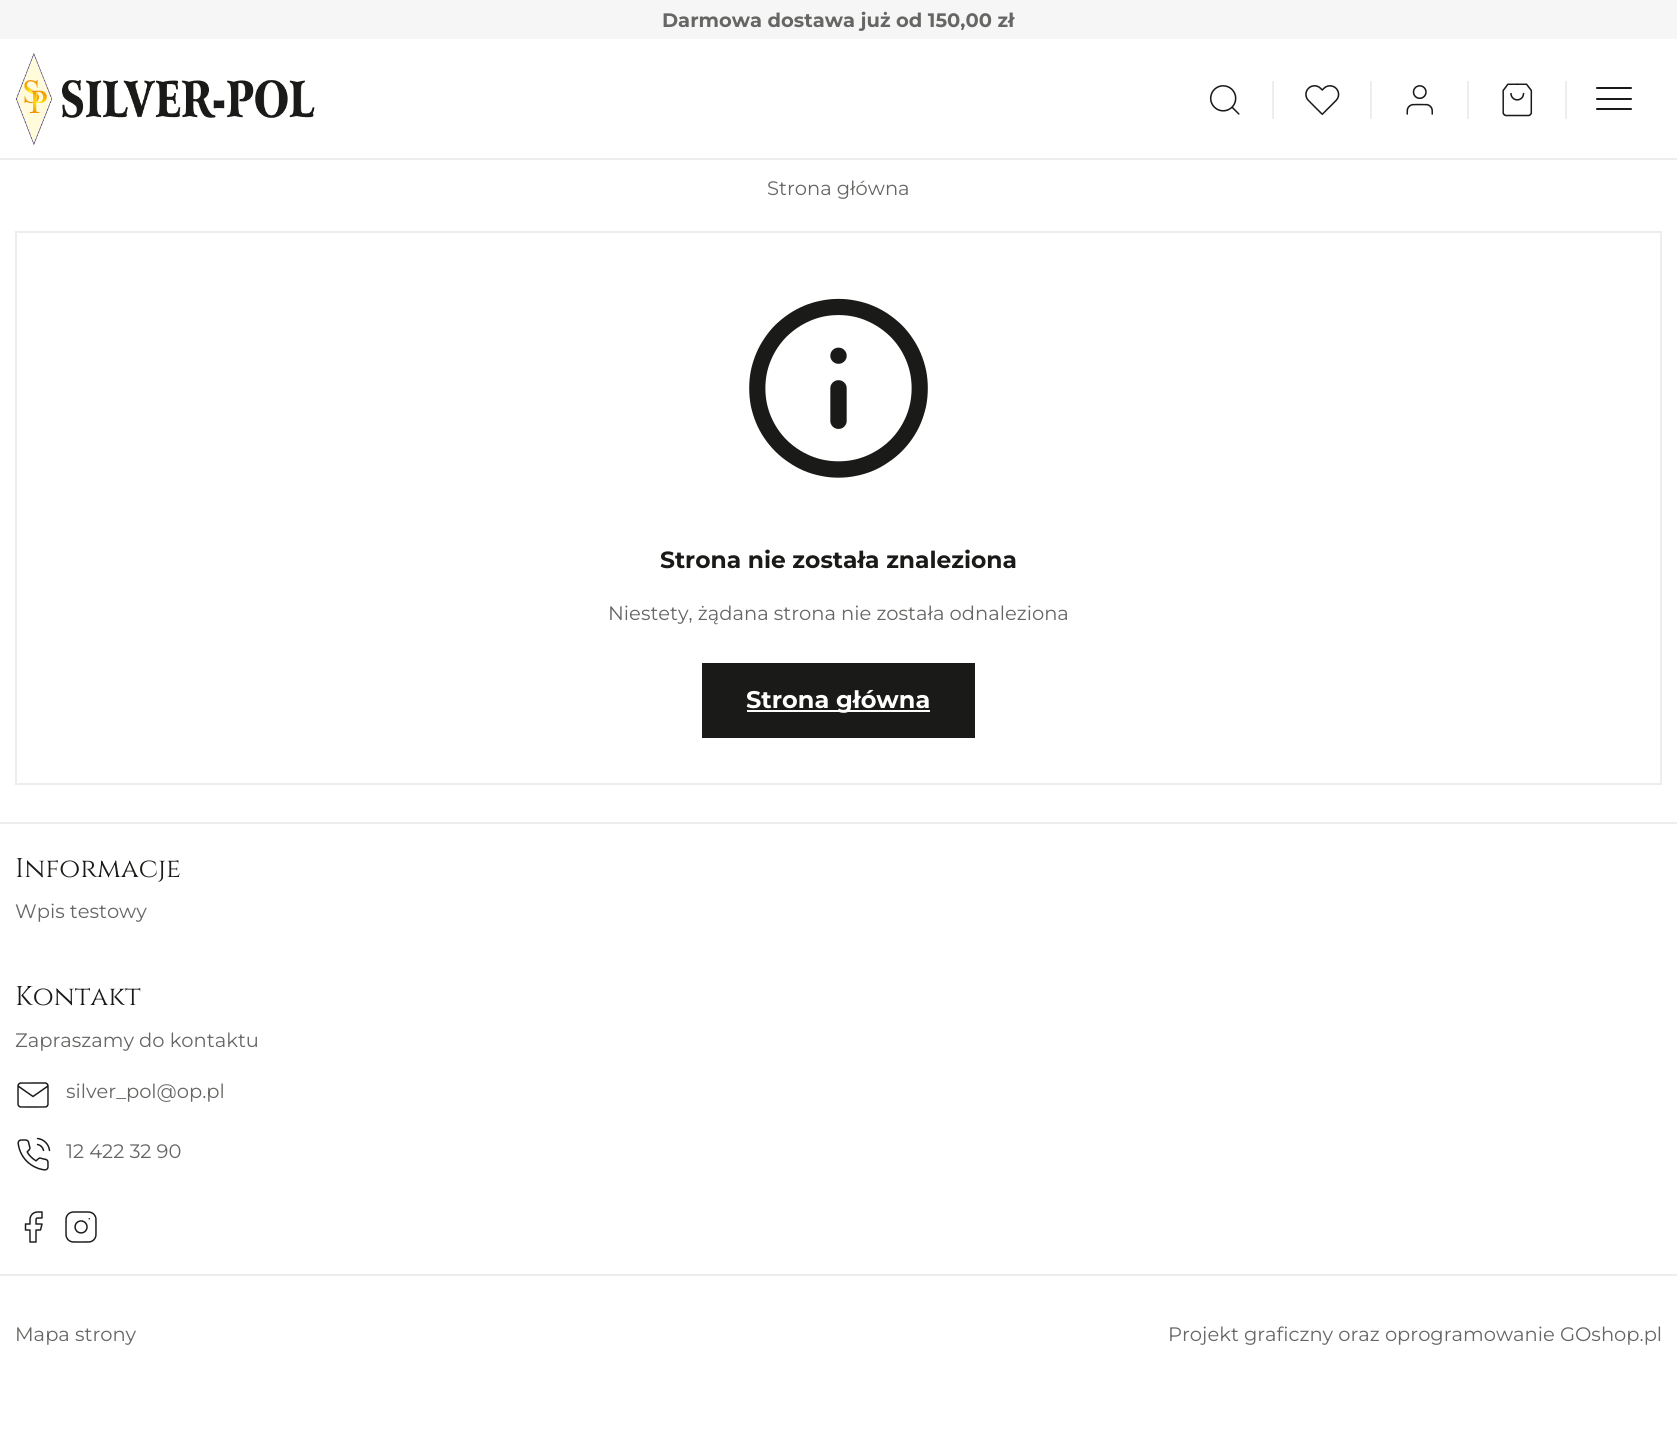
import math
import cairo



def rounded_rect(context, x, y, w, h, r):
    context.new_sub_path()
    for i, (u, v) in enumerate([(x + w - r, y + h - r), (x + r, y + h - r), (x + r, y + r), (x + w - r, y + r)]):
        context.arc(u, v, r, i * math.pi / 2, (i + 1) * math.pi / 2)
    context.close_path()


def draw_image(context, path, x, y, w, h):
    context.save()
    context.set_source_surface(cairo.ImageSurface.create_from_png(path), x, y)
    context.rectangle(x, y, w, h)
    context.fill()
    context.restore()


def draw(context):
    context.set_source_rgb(1, 1, 1)
    context.paint()
    context.set_source_rgb(246 / 255, 246 / 255, 246 / 255)
    context.rectangle(0, 0, 1677, 39)
    context.fill()
    draw_image(context, "images/1.png", 15, 51, 300, 96)
    context.set_source_rgb(237 / 255, 237 / 255, 237 / 255)
    context.rectangle(1272, 81, 2, 38)
    context.fill()
    draw_image(context, "images/2.png", 1209, 85, 31, 30)
    context.rectangle(1370, 81, 2, 38)
    context.fill()
    draw_image(context, "images/3.png", 1305, 85, 35, 31)
    context.rectangle(1467, 81, 2, 38)
    context.fill()
    draw_image(context, "images/4.png", 1406, 85, 27, 30)
    context.rectangle(1565, 81, 2, 38)
    context.fill()
    draw_image(context, "images/5.png", 1502, 83, 31, 34)
    context.set_source_rgb(26 / 255, 26 / 255, 24 / 255)
    rounded_rect(context, 1596, 87, 36, 2, 1)
    context.fill()
    rounded_rect(context, 1596, 98, 36, 2, 1)
    context.fill()
    rounded_rect(context, 1596, 108, 36, 2, 1)
    context.fill()
    context.set_source_rgb(237 / 255, 237 / 255, 237 / 255)
    context.rectangle(0, 158, 1677, 2)
    context.fill()
    context.rectangle(16, 232, 1645, 552)
    context.stroke()
    draw_image(context, "images/6.png", 749, 298, 179, 180)
    context.set_source_rgb(26 / 255, 26 / 255, 24 / 255)
    context.rectangle(702, 663, 273, 75)
    context.fill()
    context.set_source_rgb(1, 1, 1)
    context.rectangle(747, 710, 183, 2)
    context.fill()
    context.set_source_rgb(237 / 255, 237 / 255, 237 / 255)
    context.rectangle(0, 822, 1677, 2)
    context.fill()
    draw_image(context, "images/7.png", 17, 1082, 32, 26)
    draw_image(context, "images/8.png", 17, 1137, 34, 34)
    draw_image(context, "images/9.png", 24, 1211, 19, 32)
    draw_image(context, "images/10.png", 65, 1211, 32, 32)
    context.rectangle(0, 1274, 1677, 2)
    context.fill()
    context.select_font_face("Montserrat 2 Thin")
    context.set_font_size(19.5)
    context.set_source_rgb(102 / 255, 102 / 255, 100 / 255)
    context.move_to(662, 27)
    context.show_text("Darmowa dostawa już od 150,00 zł")
    context.select_font_face("Montserrat Thin")
    context.move_to(767, 195)
    context.show_text("Strona główna")
    context.select_font_face("Montserrat 2 Thin")
    context.set_font_size(23.4)
    context.set_source_rgb(26 / 255, 26 / 255, 24 / 255)
    context.move_to(660, 568)
    context.show_text("Strona nie została znaleziona")
    context.select_font_face("Montserrat Thin")
    context.set_font_size(19.5)
    context.set_source_rgb(102 / 255, 102 / 255, 100 / 255)
    context.move_to(608, 620)
    context.show_text("Niestety, żądana strona nie została odnaleziona")
    context.select_font_face("Montserrat 2 Thin")
    context.set_font_size(24)
    context.set_source_rgb(1, 1, 1)
    context.move_to(746, 708)
    context.show_text("Strona główna")
    context.select_font_face("Cinzel")
    context.set_font_size(27)
    context.set_source_rgb(26 / 255, 26 / 255, 24 / 255)
    context.move_to(15, 877)
    context.show_text("Informacje")
    context.select_font_face("Montserrat Thin")
    context.set_font_size(19.5)
    context.set_source_rgb(102 / 255, 102 / 255, 100 / 255)
    context.move_to(15, 918)
    context.show_text("Wpis testowy")
    context.select_font_face("Cinzel")
    context.set_font_size(27)
    context.set_source_rgb(26 / 255, 26 / 255, 24 / 255)
    context.move_to(15, 1005)
    context.show_text("Kontakt")
    context.select_font_face("Montserrat Thin")
    context.set_font_size(19.5)
    context.set_source_rgb(102 / 255, 102 / 255, 100 / 255)
    context.move_to(15, 1047)
    context.show_text("Zapraszamy do kontaktu")
    context.move_to(66, 1098)
    context.show_text("silver_pol@op.pl")
    context.move_to(66, 1158)
    context.show_text("12 422 32 90")
    context.move_to(15, 1341)
    context.show_text("Mapa strony")
    context.move_to(1168, 1341)
    context.show_text("Projekt graficzny oraz oprogramowanie GOshop.pl")


surface = cairo.ImageSurface(cairo.Format.RGB24, 1677, 1450)
context = cairo.Context(surface)
options = cairo.FontOptions()
options.set_hint_metrics(cairo.HintMetrics.OFF)
options.set_hint_style(cairo.HintStyle.NONE)
context.set_font_options(options)
context.set_miter_limit(4)
draw(context)
surface.write_to_png("out.png")
